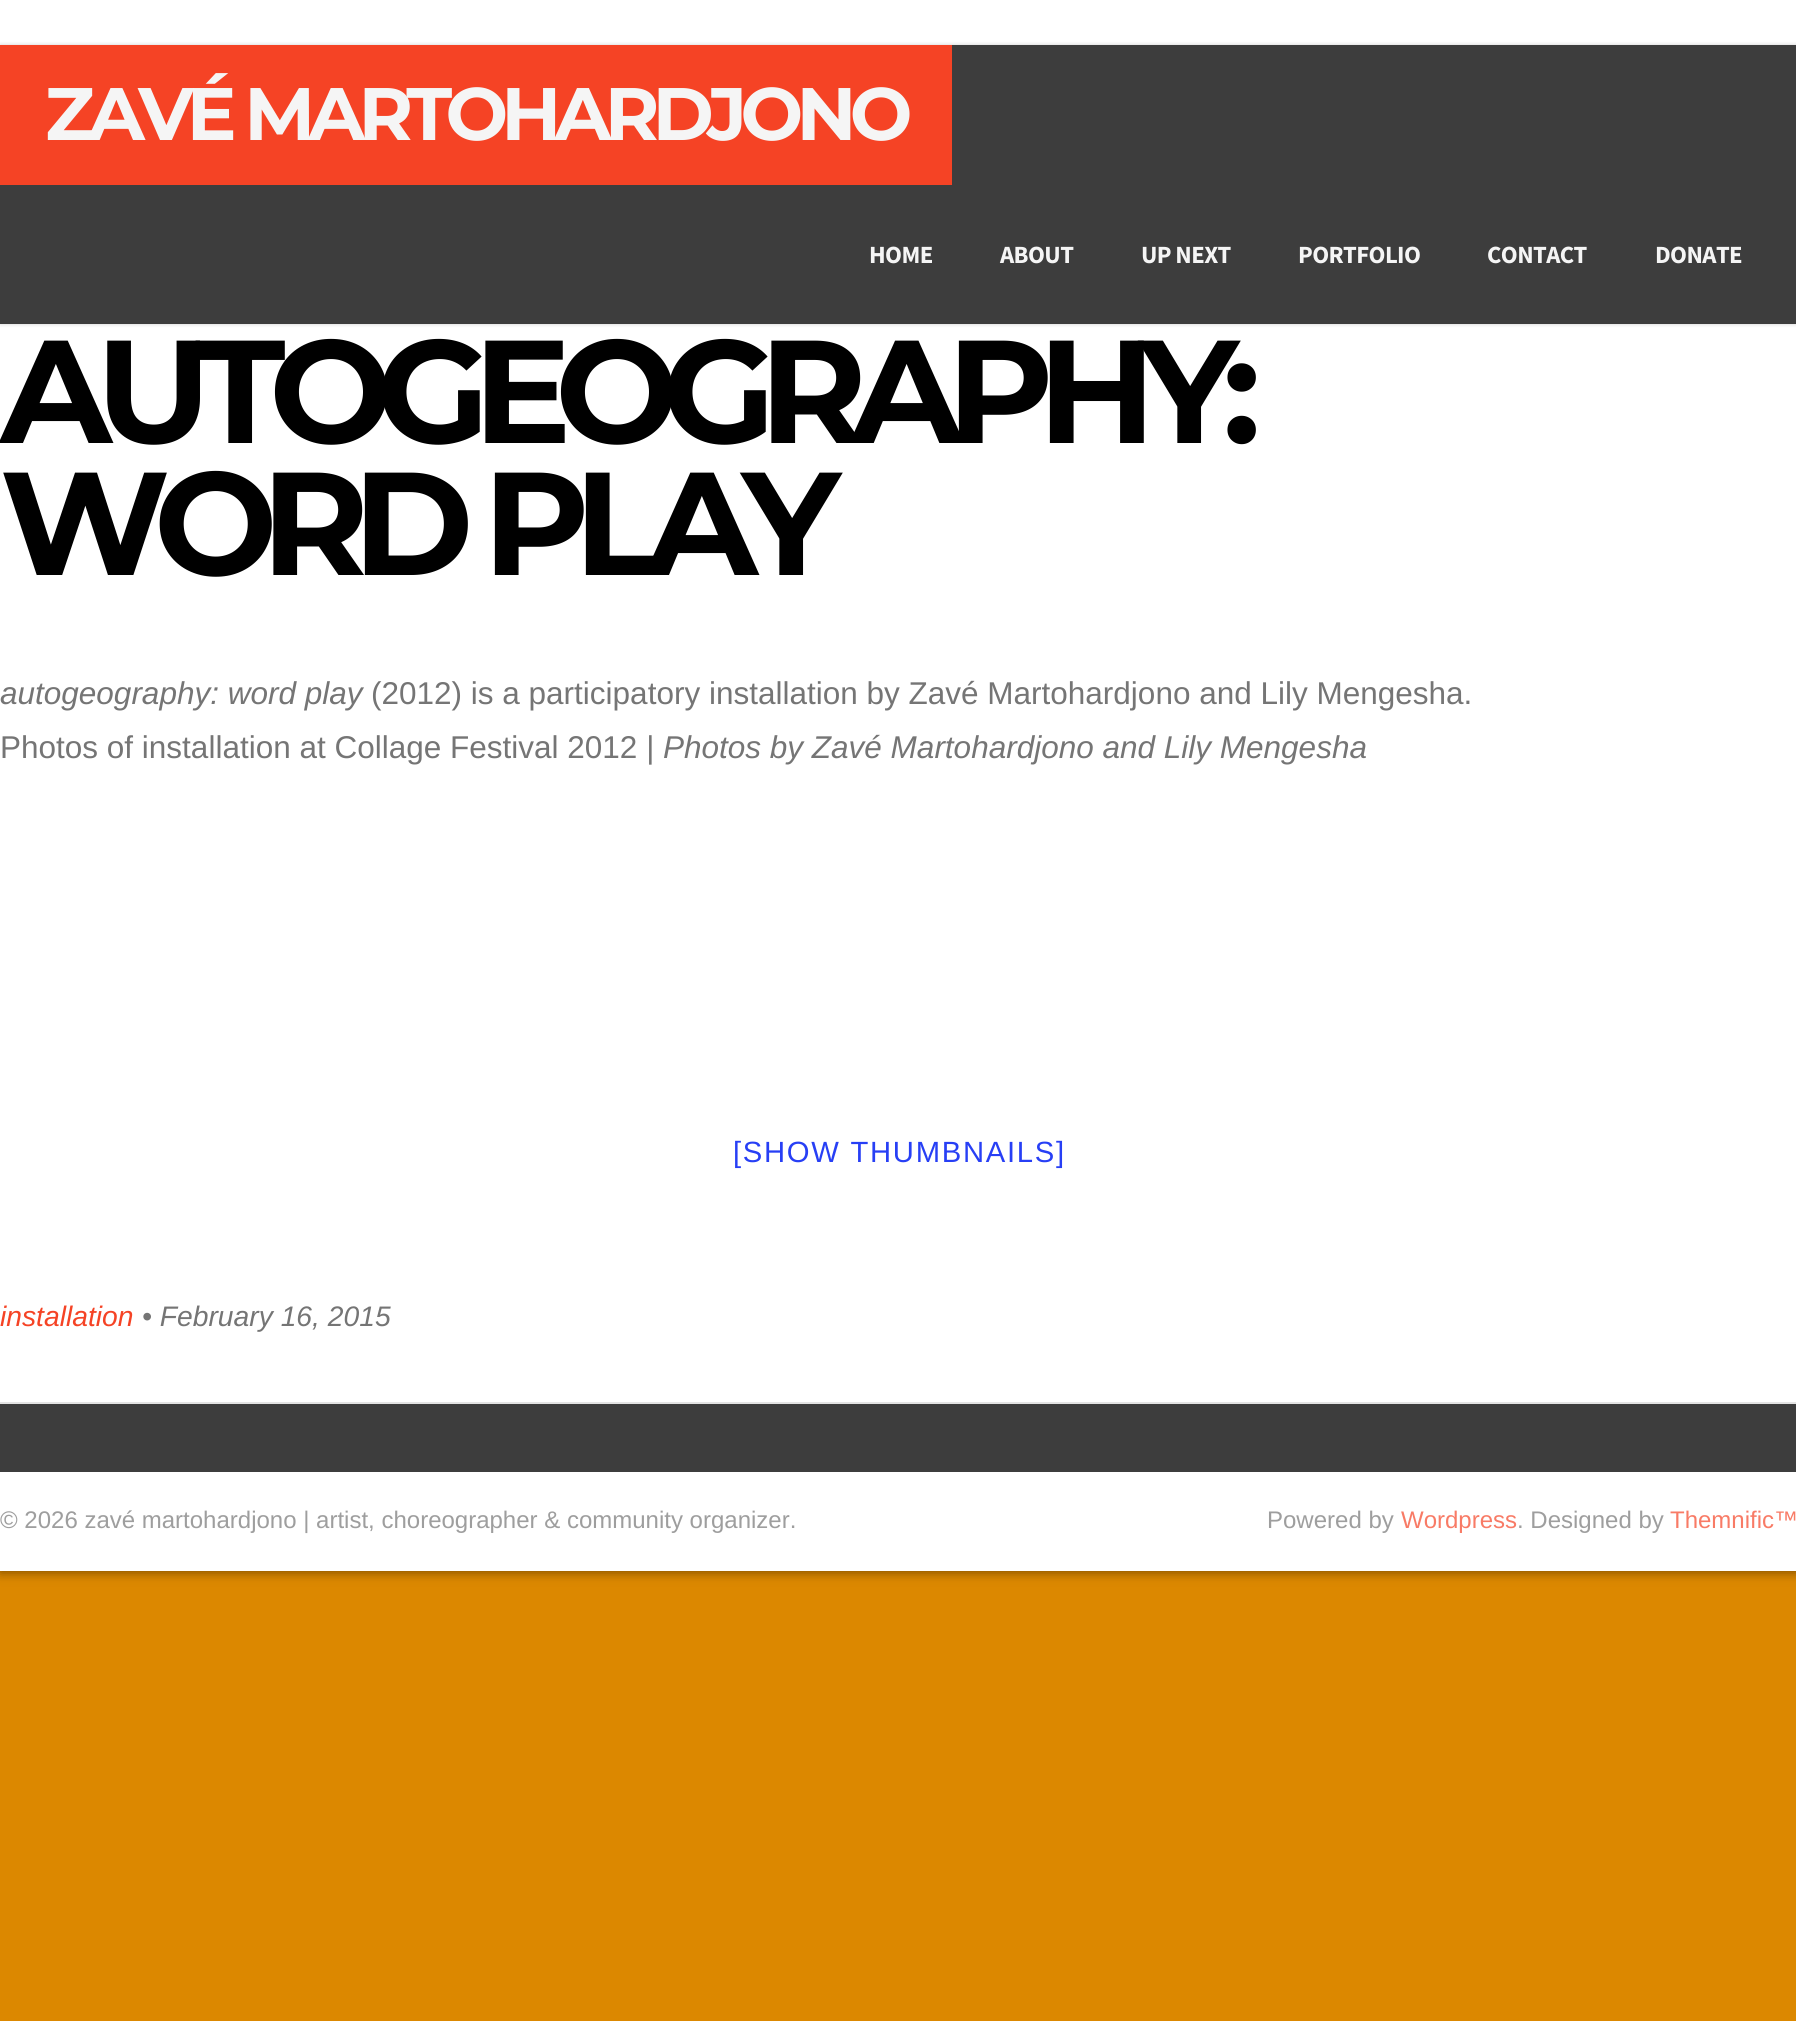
import math
import cairo



def draw_spaced(context, x, y, s, letter, word):
    context.move_to(x, y)
    for ch in s:
        context.show_text(ch)
        context.rel_move_to(letter + word * (ch == ' '), 0)


def rounded_rect(context, x, y, w, h, r):
    context.new_sub_path()
    for i, (u, v) in enumerate([(x + w - r, y + h - r), (x + r, y + h - r), (x + r, y + r), (x + w - r, y + r)]):
        context.arc(u, v, r, i * math.pi / 2, (i + 1) * math.pi / 2)
    context.close_path()


def draw_shadow(context, x, y, w, h, r, blur, alpha):
    context.push_group_with_content(cairo.Content.ALPHA)
    context.set_operator(cairo.Operator.SOURCE)
    for i in range(15, -16, -2):
        e = blur * i / 6
        if min(w, h) + 2 * e > 0:
            context.set_source_rgba(0, 0, 0, alpha * math.erfc((i - 1) / 8.5) / 2)
            rounded_rect(context, x - e, y - e, w + 2 * e, h + 2 * e, max(0, min(r + e + blur * .6, min(w, h) / 2 + e)))
            context.fill()
    context.mask(context.pop_group())


def draw(context):
    context.set_source_rgb(220 / 255, 136 / 255, 0)
    context.paint()
    context.set_source_rgb(0, 0, 0)
    draw_shadow(context, 0, 2, 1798, 1571, 0, 5.5, 0.4)
    context.set_source_rgb(1, 1, 1)
    context.rectangle(0, 0, 1796, 1571)
    context.fill()
    context.set_source_rgb(0, 0, 0)
    draw_shadow(context, 0, 45, 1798, 279, 0, 2, 0.2)
    context.set_source_rgb(61 / 255, 61 / 255, 61 / 255)
    context.rectangle(0, 45, 1796, 279)
    context.fill()
    context.set_source_rgb(245 / 255, 67 / 255, 37 / 255)
    context.rectangle(0, 45, 952, 140)
    context.fill()
    context.set_source_rgb(227 / 255, 227 / 255, 227 / 255)
    context.rectangle(0, 1402, 1796, 2)
    context.fill()
    context.set_source_rgb(61 / 255, 61 / 255, 61 / 255)
    context.rectangle(0, 1404, 1796, 68)
    context.fill()
    context.select_font_face("Montserrat", cairo.FontSlant.NORMAL, cairo.FontWeight.BOLD)
    context.set_font_size(74.25)
    context.set_source_rgb(245 / 255, 245 / 255, 245 / 255)
    draw_spaced(context, 45, 140, "ZAVÉ MARTOHARDJONO", -6.75, 0)
    context.select_font_face("Source Sans Pro", cairo.FontSlant.NORMAL, cairo.FontWeight.BOLD)
    context.set_font_size(24.75)
    draw_spaced(context, 869, 263, "HOME", -0.6, 0)
    draw_spaced(context, 1000, 263, "ABOUT", -0.6, 0)
    draw_spaced(context, 1141, 263, "UP NEXT", -0.6, 0)
    draw_spaced(context, 1298, 263, "PORTFOLIO", -0.6, 0)
    draw_spaced(context, 1487, 263, "CONTACT", -0.6, 0)
    draw_spaced(context, 1655, 263, "DONATE", -0.6, 0)
    context.select_font_face("Montserrat", cairo.FontSlant.NORMAL, cairo.FontWeight.BOLD)
    context.set_font_size(146.25)
    context.set_source_rgb(0, 0, 0)
    draw_spaced(context, 0, 443, "AUTOGEOGRAPHY:", -16.1, 0)
    draw_spaced(context, 0, 575, "WORD PLAY", -16.1, 0)
    context.select_font_face("Liberation Sans", cairo.FontSlant.ITALIC)
    context.set_font_size(31.5)
    context.set_source_rgb(117 / 255, 117 / 255, 117 / 255)
    context.move_to(0, 704)
    context.show_text("autogeography: word play")
    context.select_font_face("Liberation Sans")
    context.move_to(371, 704)
    context.show_text("(2012) is a participatory installation by Zavé Martohardjono and Lily Mengesha.")
    context.move_to(0, 758)
    context.show_text("Photos of installation at Collage Festival 2012 |")
    context.select_font_face("Liberation Sans", cairo.FontSlant.ITALIC)
    context.move_to(663, 758)
    context.show_text("Photos by Zavé Martohardjono and Lily Mengesha")
    context.select_font_face("Liberation Sans")
    context.set_font_size(29.25)
    context.set_source_rgb(39 / 255, 63 / 255, 245 / 255)
    draw_spaced(context, 733, 1162, "[SHOW THUMBNAILS]", 1.7, 0)
    context.select_font_face("Liberation Sans", cairo.FontSlant.ITALIC)
    context.set_font_size(28.25)
    context.set_source_rgb(245 / 255, 67 / 255, 37 / 255)
    context.move_to(0, 1326)
    context.show_text("installation")
    context.set_source_rgb(117 / 255, 117 / 255, 117 / 255)
    context.move_to(142, 1326)
    context.show_text("• February 16, 2015")
    context.select_font_face("Liberation Sans")
    context.set_font_size(24)
    context.set_source_rgb(158 / 255, 158 / 255, 158 / 255)
    context.move_to(0, 1528)
    context.show_text("© 2026 zavé martohardjono | artist, choreographer & community organizer.")
    context.move_to(1267, 1528)
    context.show_text("Powered by")
    context.set_source_rgb(248 / 255, 123 / 255, 102 / 255)
    context.move_to(1401, 1528)
    context.show_text("Wordpress")
    context.set_source_rgb(158 / 255, 158 / 255, 158 / 255)
    context.move_to(1517, 1528)
    context.show_text(". Designed by")
    context.set_source_rgb(248 / 255, 123 / 255, 102 / 255)
    context.move_to(1670, 1528)
    context.show_text("Themnific™")


surface = cairo.ImageSurface(cairo.Format.RGB24, 1796, 2021)
context = cairo.Context(surface)
options = cairo.FontOptions()
options.set_hint_metrics(cairo.HintMetrics.OFF)
options.set_hint_style(cairo.HintStyle.NONE)
context.set_font_options(options)
context.set_miter_limit(4)
draw(context)
surface.write_to_png("out.png")
